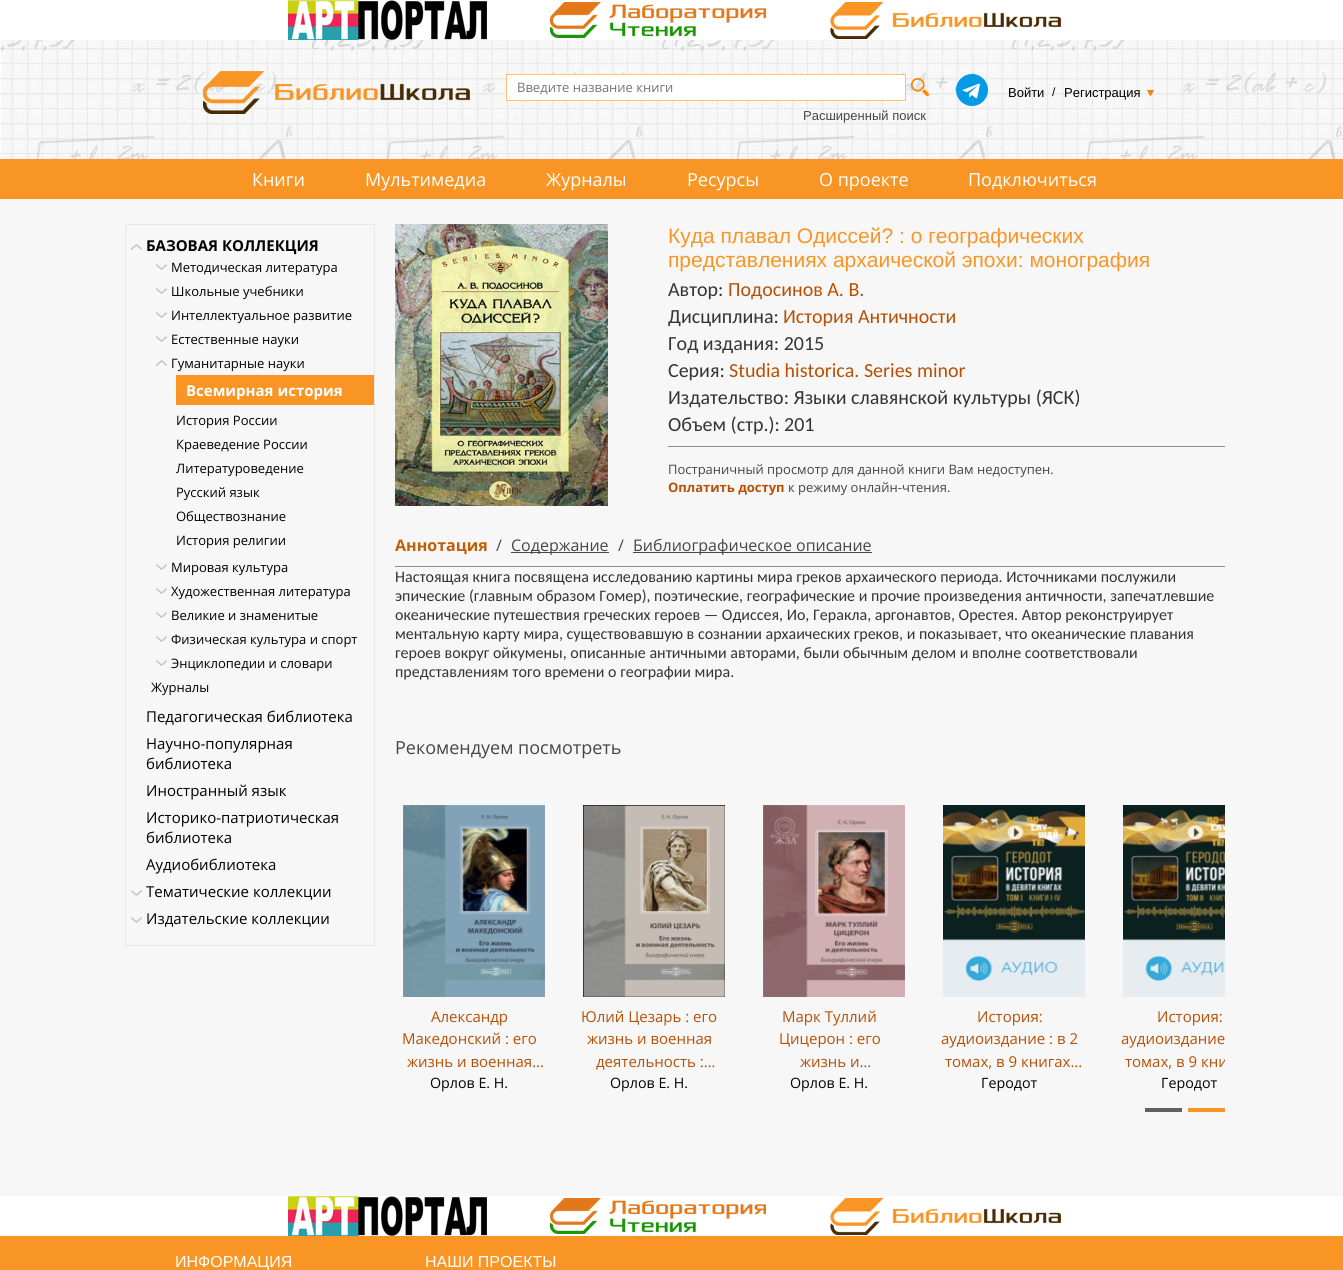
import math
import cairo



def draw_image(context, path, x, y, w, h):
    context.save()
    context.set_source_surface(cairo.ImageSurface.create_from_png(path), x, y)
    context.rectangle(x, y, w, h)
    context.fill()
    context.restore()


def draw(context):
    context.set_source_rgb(247 / 255, 247 / 255, 247 / 255)
    context.paint()
    context.set_source_rgb(1, 1, 1)
    context.rectangle(0, 0, 1343, 40)
    context.fill()
    draw_image(context, "images/1.png", 288, 0, 199, 40)
    draw_image(context, "images/2.png", 550, 2, 216, 36)
    draw_image(context, "images/3.png", 830, 2, 231, 37)
    draw_image(context, "images/4.png", 0, 40, 1343, 119)
    draw_image(context, "images/5.png", 203, 71, 267, 43)
    context.rectangle(506.5, 74.5, 399, 26)
    context.fill_preserve()
    context.set_source_rgb(1, 194 / 255, 107 / 255)
    context.set_line_width(1)
    context.stroke()
    draw_image(context, "images/6.png", 911, 78, 18, 18)
    draw_image(context, "images/7.png", 956, 74, 32, 32)
    draw_image(context, "images/8.png", 1147, 90, 7, 6)
    context.set_source_rgb(249 / 255, 149 / 255, 36 / 255)
    context.rectangle(0, 159, 1343, 40)
    context.fill()
    context.rectangle(125.5, 224.5, 249, 721)
    context.set_source_rgb(232 / 255, 232 / 255, 232 / 255)
    context.stroke()
    draw_image(context, "images/9.png", 131, 244, 11, 6)
    draw_image(context, "images/10.png", 156, 264, 11, 6)
    draw_image(context, "images/10.png", 156, 288, 11, 6)
    draw_image(context, "images/10.png", 156, 312, 11, 6)
    draw_image(context, "images/10.png", 156, 336, 11, 6)
    draw_image(context, "images/9.png", 156, 360, 11, 6)
    context.set_source_rgb(249 / 255, 149 / 255, 36 / 255)
    context.rectangle(176, 375, 198, 30)
    context.fill()
    draw_image(context, "images/10.png", 156, 564, 11, 6)
    draw_image(context, "images/10.png", 156, 588, 11, 6)
    draw_image(context, "images/10.png", 156, 612, 11, 6)
    draw_image(context, "images/10.png", 156, 636, 11, 6)
    draw_image(context, "images/10.png", 156, 660, 11, 6)
    draw_image(context, "images/10.png", 131, 890, 11, 6)
    draw_image(context, "images/10.png", 131, 917, 11, 6)
    draw_image(context, "images/11.png", 395, 224, 213, 282)
    context.set_source_rgb(139 / 255, 139 / 255, 146 / 255)
    context.rectangle(668, 446, 557, 1)
    context.fill()
    context.set_source_rgb(71 / 255, 71 / 255, 71 / 255)
    context.rectangle(511, 552, 98, 1)
    context.fill()
    context.rectangle(633, 552, 239, 1)
    context.fill()
    context.set_source_rgb(139 / 255, 139 / 255, 146 / 255)
    context.rectangle(395, 566, 830, 1)
    context.fill()
    draw_image(context, "images/12.png", 403, 805, 142, 192)
    draw_image(context, "images/13.png", 583, 805, 142, 192)
    draw_image(context, "images/14.png", 763, 805, 142, 192)
    draw_image(context, "images/15.png", 943, 805, 142, 192)
    draw_image(context, "images/16.png", 1123, 805, 102, 192)
    context.set_source_rgb(97 / 255, 97 / 255, 97 / 255)
    context.rectangle(1145, 1108, 37, 4)
    context.fill()
    context.set_source_rgb(249 / 255, 149 / 255, 36 / 255)
    context.rectangle(1188, 1108, 37, 4)
    context.fill()
    context.set_source_rgb(1, 1, 1)
    context.rectangle(0, 1196, 1343, 40)
    context.fill()
    draw_image(context, "images/1.png", 288, 1196, 199, 40)
    draw_image(context, "images/2.png", 550, 1198, 216, 36)
    draw_image(context, "images/3.png", 830, 1198, 231, 37)
    context.set_source_rgb(249 / 255, 149 / 255, 36 / 255)
    context.rectangle(0, 1236, 1343, 34)
    context.fill()
    context.select_font_face("Open Sans")
    context.set_font_size(13)
    context.set_source_rgb(117 / 255, 117 / 255, 117 / 255)
    context.move_to(517, 92)
    context.show_text("Введите название книги")
    context.select_font_face("Liberation Sans")
    context.set_source_rgb(70 / 255, 70 / 255, 70 / 255)
    context.move_to(803, 120)
    context.show_text("Расширенный поиск")
    context.set_source_rgb(0, 0, 0)
    context.move_to(1008, 97)
    context.show_text("Войти")
    context.set_font_size(12)
    context.move_to(1052, 96)
    context.show_text("/")
    context.set_font_size(13)
    context.move_to(1064, 97)
    context.show_text("Регистрация")
    context.select_font_face("Open Sans")
    context.set_font_size(18)
    context.set_source_rgb(1, 1, 1)
    context.move_to(252, 186)
    context.show_text("Книги")
    context.move_to(365, 186)
    context.show_text("Мультимедиа")
    context.move_to(546, 186)
    context.show_text("Журналы")
    context.move_to(687, 186)
    context.show_text("Ресурсы")
    context.move_to(819, 186)
    context.show_text("О проекте")
    context.move_to(968, 186)
    context.show_text("Подключиться")
    context.select_font_face("Open Sans", cairo.FontSlant.NORMAL, cairo.FontWeight.BOLD)
    context.set_font_size(15)
    context.set_source_rgb(0, 0, 0)
    context.move_to(146, 251)
    context.show_text("БАЗОВАЯ КОЛЛЕКЦИЯ")
    context.select_font_face("Open Sans")
    context.set_font_size(13)
    context.move_to(171, 272)
    context.show_text("Методическая литература")
    context.move_to(171, 296)
    context.show_text("Школьные учебники")
    context.move_to(171, 320)
    context.show_text("Интеллектуальное развитие")
    context.move_to(171, 344)
    context.show_text("Естественные науки")
    context.move_to(171, 368)
    context.show_text("Гуманитарные науки")
    context.select_font_face("Open Sans", cairo.FontSlant.NORMAL, cairo.FontWeight.BOLD)
    context.set_font_size(15)
    context.set_source_rgb(1, 1, 1)
    context.move_to(186, 396)
    context.show_text("Всемирная история")
    context.select_font_face("Open Sans")
    context.set_font_size(13)
    context.set_source_rgb(0, 0, 0)
    context.move_to(176, 425)
    context.show_text("История России")
    context.move_to(176, 449)
    context.show_text("Краеведение России")
    context.move_to(176, 473)
    context.show_text("Литературоведение")
    context.move_to(176, 497)
    context.show_text("Русский язык")
    context.move_to(176, 521)
    context.show_text("Обществознание")
    context.move_to(176, 545)
    context.show_text("История религии")
    context.move_to(171, 572)
    context.show_text("Мировая культура")
    context.move_to(171, 596)
    context.show_text("Художественная литература")
    context.move_to(171, 620)
    context.show_text("Великие и знаменитые")
    context.move_to(171, 644)
    context.show_text("Физическая культура и спорт")
    context.move_to(171, 668)
    context.show_text("Энциклопедии и словари")
    context.move_to(151, 692)
    context.show_text("Журналы")
    context.set_font_size(15)
    context.move_to(146, 722)
    context.show_text("Педагогическая библиотека")
    context.move_to(146, 749)
    context.show_text("Научно-популярная")
    context.move_to(146, 769)
    context.show_text("библиотека")
    context.move_to(146, 796)
    context.show_text("Иностранный язык")
    context.move_to(146, 823)
    context.show_text("Историко-патриотическая")
    context.move_to(146, 843)
    context.show_text("библиотека")
    context.move_to(146, 870)
    context.show_text("Аудиобиблиотека")
    context.move_to(146, 897)
    context.show_text("Тематические коллекции")
    context.move_to(146, 924)
    context.show_text("Издательские коллекции")
    context.select_font_face("Liberation Sans")
    context.set_font_size(21)
    context.set_source_rgb(249 / 255, 149 / 255, 36 / 255)
    context.move_to(668, 243)
    context.show_text("Куда плавал Одиссей? : о географических")
    context.move_to(668, 267)
    context.show_text("представлениях архаической эпохи: монография")
    context.select_font_face("Carlito")
    context.set_font_size(20)
    context.set_source_rgb(52 / 255, 52 / 255, 52 / 255)
    context.move_to(668, 296)
    context.show_text("Автор:")
    context.set_source_rgb(183 / 255, 80 / 255, 5 / 255)
    context.move_to(728, 296)
    context.show_text("Подосинов А. В.")
    context.set_source_rgb(52 / 255, 52 / 255, 52 / 255)
    context.move_to(668, 323)
    context.show_text("Дисциплина:")
    context.set_source_rgb(183 / 255, 80 / 255, 5 / 255)
    context.move_to(783, 323)
    context.show_text("История Античности")
    context.set_source_rgb(52 / 255, 52 / 255, 52 / 255)
    context.move_to(668, 350)
    context.show_text("Год издания: 2015")
    context.move_to(668, 377)
    context.show_text("Серия:")
    context.set_source_rgb(183 / 255, 80 / 255, 5 / 255)
    context.move_to(729, 377)
    context.show_text("Studia historica. Series minor")
    context.set_source_rgb(52 / 255, 52 / 255, 52 / 255)
    context.move_to(668, 404)
    context.show_text("Издательство: Языки славянской культуры (ЯСК)")
    context.move_to(668, 431)
    context.show_text("Объем (стр.):")
    context.move_to(784, 431)
    context.show_text("201")
    context.select_font_face("Open Sans")
    context.set_font_size(13)
    context.set_source_rgb(70 / 255, 70 / 255, 70 / 255)
    context.move_to(668, 474)
    context.show_text("Постраничный просмотр для данной книги Вам недоступен.")
    context.select_font_face("Open Sans", cairo.FontSlant.NORMAL, cairo.FontWeight.BOLD)
    context.set_source_rgb(183 / 255, 80 / 255, 5 / 255)
    context.move_to(668, 492)
    context.show_text("Оплатить доступ")
    context.select_font_face("Open Sans")
    context.set_source_rgb(70 / 255, 70 / 255, 70 / 255)
    context.move_to(788, 492)
    context.show_text("к режиму онлайн-чтения.")
    context.select_font_face("Open Sans", cairo.FontSlant.NORMAL, cairo.FontWeight.BOLD)
    context.set_font_size(16)
    context.set_source_rgb(194 / 255, 95 / 255, 5 / 255)
    context.move_to(395, 551)
    context.show_text("Аннотация")
    context.select_font_face("Open Sans")
    context.set_source_rgb(70 / 255, 70 / 255, 70 / 255)
    context.move_to(496, 551)
    context.show_text("/")
    context.move_to(511, 551)
    context.show_text("Содержание")
    context.move_to(618, 551)
    context.show_text("/")
    context.move_to(633, 551)
    context.show_text("Библиографическое описание")
    context.select_font_face("Carlito")
    context.set_source_rgb(52 / 255, 52 / 255, 52 / 255)
    context.move_to(395, 582)
    context.show_text("Настоящая книга посвящена исследованию картины мира греков архаического периода. Источниками послужили")
    context.move_to(395, 601)
    context.show_text("эпические (главным образом Гомер), поэтические, географические и прочие произведения античности, запечатлевшие")
    context.move_to(395, 620)
    context.show_text("океанические путешествия греческих героев — Одиссея, Ио, Геракла, аргонавтов, Орестея. Автор реконструирует")
    context.move_to(395, 639)
    context.show_text("ментальную карту мира, существовавшую в сознании архаических греков, и показывает, что океанические плавания")
    context.move_to(395, 658)
    context.show_text("героев вокруг ойкумены, описанные античными авторами, были обычным делом и вполне соответствовали")
    context.move_to(395, 677)
    context.show_text("представлениям того времени о географии мира.")
    context.select_font_face("Open Sans")
    context.set_font_size(18)
    context.set_source_rgb(70 / 255, 70 / 255, 70 / 255)
    context.move_to(395, 754)
    context.show_text("Рекомендуем посмотреть")
    context.set_font_size(15)
    context.set_source_rgb(183 / 255, 80 / 255, 5 / 255)
    context.move_to(431, 1022)
    context.show_text("Александр")
    context.move_to(402, 1044)
    context.show_text("Македонский : его")
    context.move_to(407, 1067)
    context.show_text("жизнь и военная…")
    context.set_font_size(14.25)
    context.set_source_rgb(0, 0, 0)
    context.move_to(430, 1088)
    context.show_text("Орлов Е. Н.")
    context.set_font_size(15)
    context.set_source_rgb(183 / 255, 80 / 255, 5 / 255)
    context.move_to(581, 1022)
    context.show_text("Юлий Цезарь : его")
    context.move_to(587, 1044)
    context.show_text("жизнь и военная")
    context.move_to(596, 1067)
    context.show_text("деятельность :…")
    context.set_font_size(14.25)
    context.set_source_rgb(0, 0, 0)
    context.move_to(610, 1088)
    context.show_text("Орлов Е. Н.")
    context.set_font_size(15)
    context.set_source_rgb(183 / 255, 80 / 255, 5 / 255)
    context.move_to(782, 1022)
    context.show_text("Марк Туллий")
    context.move_to(779, 1044)
    context.show_text("Цицерон : его")
    context.move_to(800, 1067)
    context.show_text("жизнь и…")
    context.set_font_size(14.25)
    context.set_source_rgb(0, 0, 0)
    context.move_to(790, 1088)
    context.show_text("Орлов Е. Н.")
    context.set_font_size(15)
    context.set_source_rgb(183 / 255, 80 / 255, 5 / 255)
    context.move_to(977, 1022)
    context.show_text("История:")
    context.move_to(941, 1044)
    context.show_text("аудиоиздание : в 2")
    context.move_to(945, 1067)
    context.show_text("томах, в 9 книгах…")
    context.set_font_size(14.25)
    context.set_source_rgb(0, 0, 0)
    context.move_to(981, 1088)
    context.show_text("Геродот")
    context.set_font_size(15)
    context.set_source_rgb(183 / 255, 80 / 255, 5 / 255)
    context.move_to(1157, 1022)
    context.show_text("История:")
    context.move_to(1121, 1044)
    context.show_text("аудиоиздание")
    context.save()
    context.rectangle(1115, 1005, 110, 67)
    context.clip()
    context.move_to(1125, 1067)
    context.show_text("томах, в 9 кни")
    context.restore()
    context.set_font_size(14.25)
    context.set_source_rgb(0, 0, 0)
    context.move_to(1161, 1088)
    context.show_text("Геродот")
    context.select_font_face("Liberation Sans")
    context.set_font_size(16)
    context.set_source_rgb(1, 1, 1)
    context.move_to(175, 1267)
    context.show_text("ИНФОРМАЦИЯ")
    context.move_to(425, 1267)
    context.show_text("НАШИ ПРОЕКТЫ")


surface = cairo.ImageSurface(cairo.Format.RGB24, 1343, 1270)
context = cairo.Context(surface)
options = cairo.FontOptions()
options.set_hint_metrics(cairo.HintMetrics.OFF)
options.set_hint_style(cairo.HintStyle.NONE)
context.set_font_options(options)
context.set_miter_limit(4)
draw(context)
surface.write_to_png("out.png")
